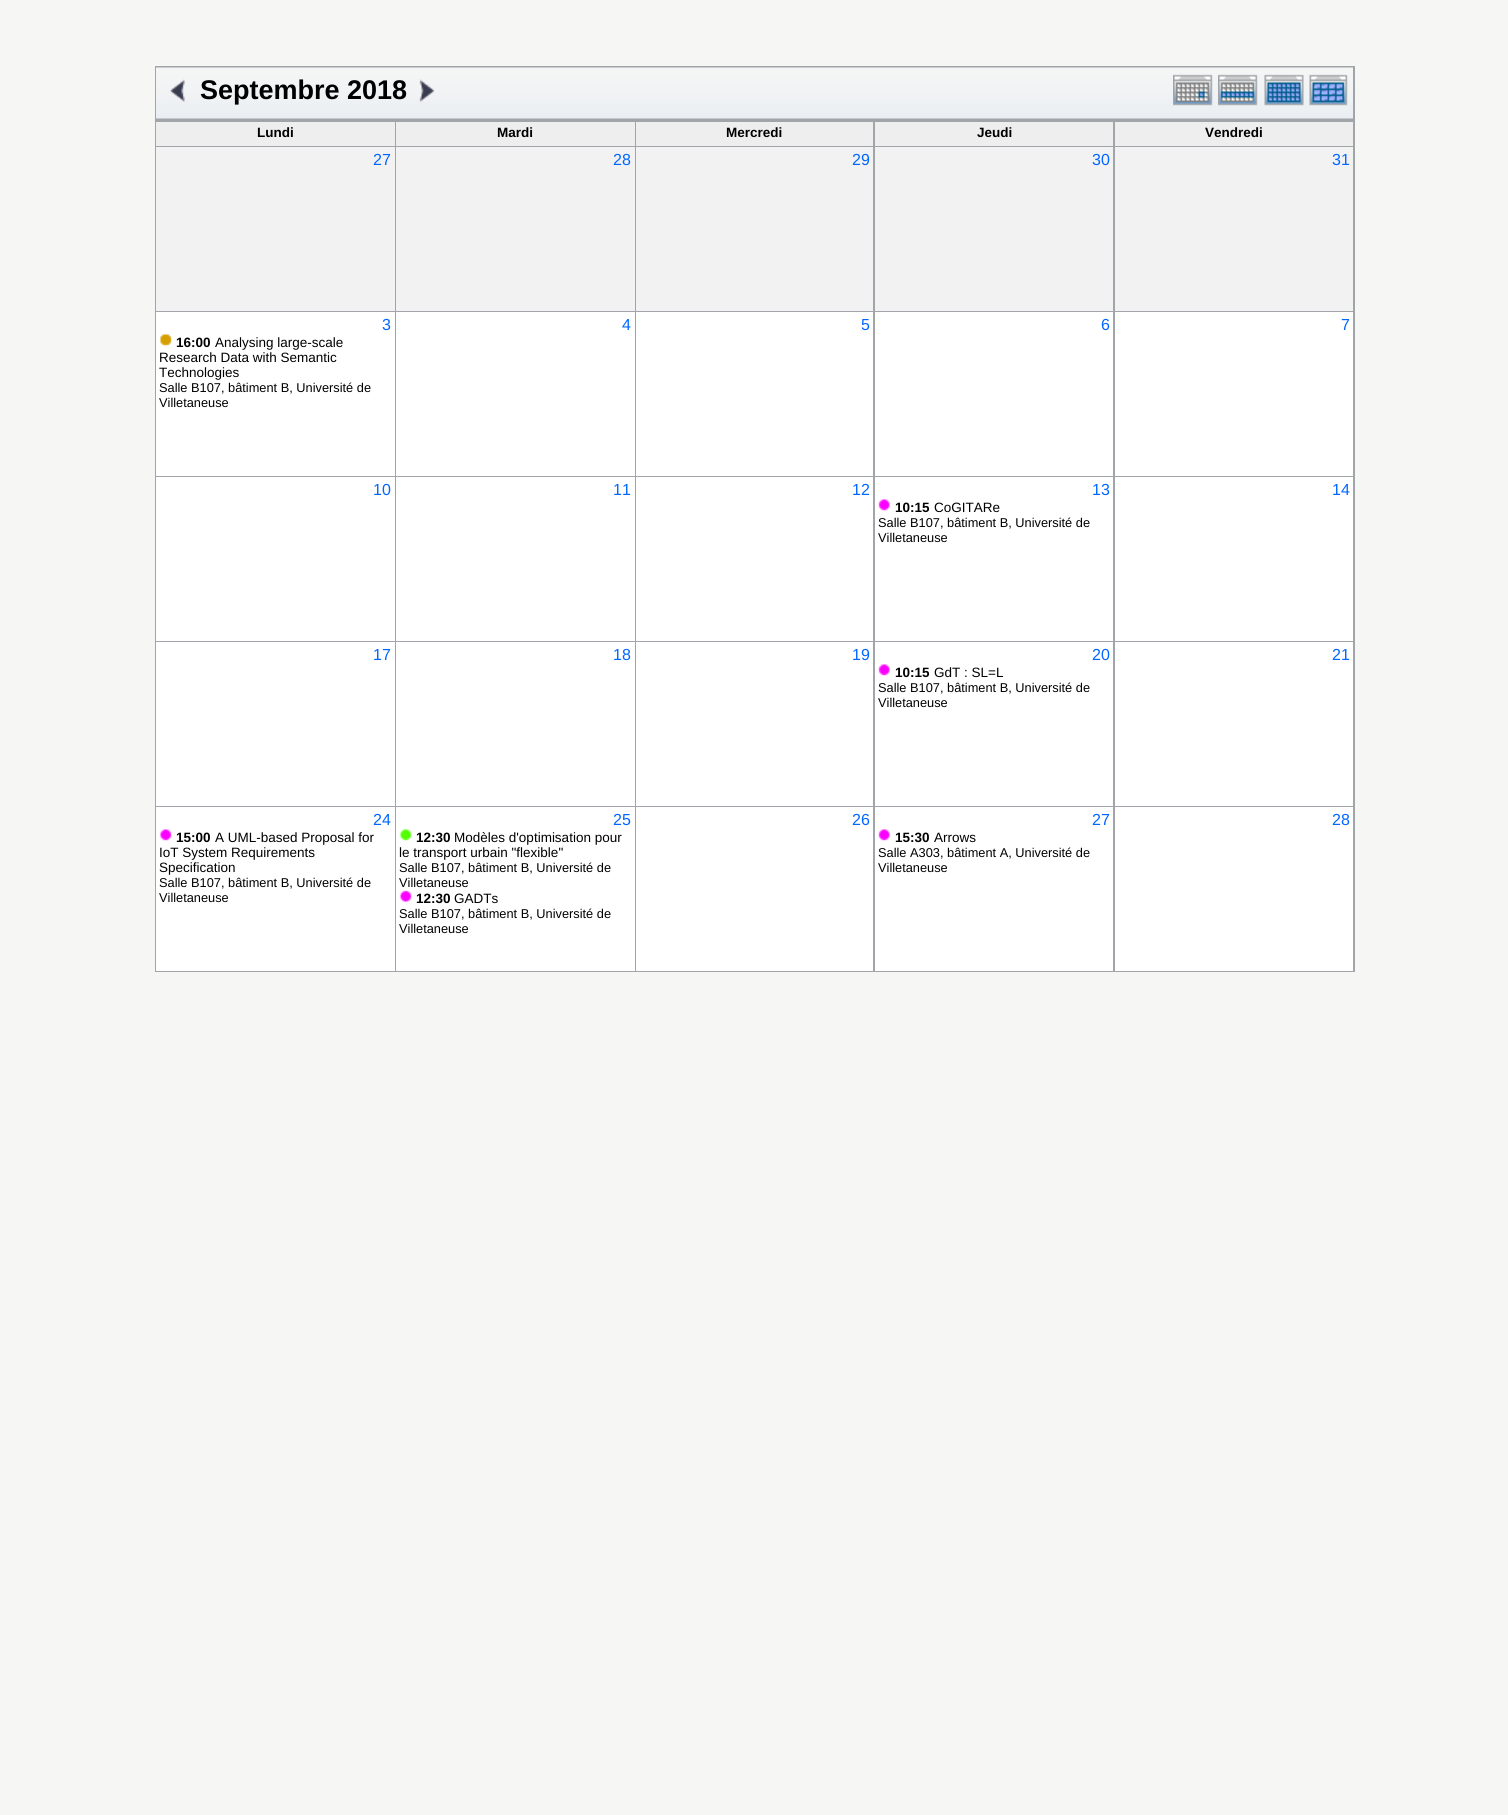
import math
import cairo



def draw_image(context, path, x, y, w, h):
    context.save()
    context.set_source_surface(cairo.ImageSurface.create_from_png(path), x, y)
    context.rectangle(x, y, w, h)
    context.fill()
    context.restore()


def draw(context):
    context.set_source_rgb(246 / 255, 246 / 255, 245 / 255)
    context.paint()
    context.rectangle(156, 67, 1198, 52)
    context.set_source_rgb(161 / 255, 165 / 255, 169 / 255)
    context.stroke()
    draw_image(context, "images/1.png", 156, 67, 1017, 52)
    draw_image(context, "images/2.png", 169, 79, 16, 24)
    draw_image(context, "images/3.png", 419, 79, 16, 24)
    draw_image(context, "images/4.png", 1173, 67, 180, 52)
    draw_image(context, "images/5.png", 1173, 74, 40, 32)
    draw_image(context, "images/6.png", 1218, 74, 40, 32)
    draw_image(context, "images/7.png", 1264, 74, 40, 32)
    draw_image(context, "images/8.png", 1309, 74, 39, 32)
    context.rectangle(155, 120, 1200, 852)
    context.fill()
    context.set_source_rgb(238 / 255, 238 / 255, 238 / 255)
    context.rectangle(156, 122, 239, 24)
    context.fill()
    context.rectangle(396, 122, 239, 24)
    context.fill()
    context.rectangle(636, 122, 237, 24)
    context.fill()
    context.rectangle(875, 122, 238, 24)
    context.fill()
    context.rectangle(1115, 122, 238, 24)
    context.fill()
    context.set_source_rgb(242 / 255, 242 / 255, 242 / 255)
    context.rectangle(156, 147, 239, 164)
    context.fill()
    context.rectangle(396, 147, 239, 164)
    context.fill()
    context.rectangle(636, 147, 237, 164)
    context.fill()
    context.rectangle(875, 147, 238, 164)
    context.fill()
    context.rectangle(1115, 147, 238, 164)
    context.fill()
    context.set_source_rgb(1, 1, 1)
    context.rectangle(156, 312, 239, 164)
    context.fill()
    draw_image(context, "images/9.png", 160, 334, 12, 12)
    context.rectangle(396, 312, 239, 164)
    context.fill()
    context.rectangle(636, 312, 237, 164)
    context.fill()
    context.rectangle(875, 312, 238, 164)
    context.fill()
    context.rectangle(1115, 312, 238, 164)
    context.fill()
    context.rectangle(156, 477, 239, 164)
    context.fill()
    context.rectangle(396, 477, 239, 164)
    context.fill()
    context.rectangle(636, 477, 237, 164)
    context.fill()
    context.rectangle(875, 477, 238, 164)
    context.fill()
    draw_image(context, "images/10.png", 878, 499, 12, 12)
    context.rectangle(1115, 477, 238, 164)
    context.fill()
    context.rectangle(156, 642, 239, 164)
    context.fill()
    context.rectangle(396, 642, 239, 164)
    context.fill()
    context.rectangle(636, 642, 237, 164)
    context.fill()
    context.rectangle(875, 642, 238, 164)
    context.fill()
    draw_image(context, "images/10.png", 878, 664, 12, 12)
    context.rectangle(1115, 642, 238, 164)
    context.fill()
    context.rectangle(156, 807, 239, 164)
    context.fill()
    draw_image(context, "images/11.png", 160, 829, 12, 12)
    context.rectangle(396, 807, 239, 164)
    context.fill()
    draw_image(context, "images/12.png", 400, 829, 12, 12)
    draw_image(context, "images/13.png", 400, 890, 12, 12)
    context.rectangle(636, 807, 237, 164)
    context.fill()
    context.rectangle(875, 807, 238, 164)
    context.fill()
    draw_image(context, "images/10.png", 878, 829, 12, 12)
    context.rectangle(1115, 807, 238, 164)
    context.fill()
    context.select_font_face("Liberation Sans", cairo.FontSlant.NORMAL, cairo.FontWeight.BOLD)
    context.set_font_size(27)
    context.set_source_rgb(0, 0, 0)
    context.move_to(200, 99)
    context.show_text("Septembre 2018")
    context.set_font_size(13.5)
    context.move_to(257, 137)
    context.show_text("Lundi")
    context.move_to(497, 137)
    context.show_text("Mardi")
    context.move_to(726, 137)
    context.show_text("Mercredi")
    context.move_to(977, 137)
    context.show_text("Jeudi")
    context.move_to(1205, 137)
    context.show_text("Vendredi")
    context.select_font_face("Liberation Sans")
    context.set_font_size(16)
    context.set_source_rgb(0, 102 / 255, 1)
    context.move_to(373, 165)
    context.show_text("27")
    context.move_to(613, 165)
    context.show_text("28")
    context.move_to(852, 165)
    context.show_text("29")
    context.move_to(1092, 165)
    context.show_text("30")
    context.move_to(1332, 165)
    context.show_text("31")
    context.move_to(382, 330)
    context.show_text("3")
    context.select_font_face("Liberation Sans", cairo.FontSlant.NORMAL, cairo.FontWeight.BOLD)
    context.set_font_size(13.5)
    context.set_source_rgb(0, 0, 0)
    context.move_to(176, 347)
    context.show_text("16:00")
    context.select_font_face("Liberation Sans")
    context.move_to(215, 347)
    context.show_text("Analysing large-scale")
    context.move_to(159, 362)
    context.show_text("Research Data with Semantic")
    context.move_to(159, 377)
    context.show_text("Technologies")
    context.set_font_size(12.8)
    context.move_to(159, 392)
    context.show_text("Salle B107, bâtiment B, Université de")
    context.move_to(159, 407)
    context.show_text("Villetaneuse")
    context.set_font_size(16)
    context.set_source_rgb(0, 102 / 255, 1)
    context.move_to(622, 330)
    context.show_text("4")
    context.move_to(861, 330)
    context.show_text("5")
    context.move_to(1101, 330)
    context.show_text("6")
    context.move_to(1341, 330)
    context.show_text("7")
    context.move_to(373, 495)
    context.show_text("10")
    context.move_to(613, 495)
    context.show_text("11")
    context.move_to(852, 495)
    context.show_text("12")
    context.move_to(1092, 495)
    context.show_text("13")
    context.select_font_face("Liberation Sans", cairo.FontSlant.NORMAL, cairo.FontWeight.BOLD)
    context.set_font_size(13.5)
    context.set_source_rgb(0, 0, 0)
    context.move_to(895, 512)
    context.show_text("10:15")
    context.select_font_face("Liberation Sans")
    context.move_to(934, 512)
    context.show_text("CoGITARe")
    context.set_font_size(12.8)
    context.move_to(878, 527)
    context.show_text("Salle B107, bâtiment B, Université de")
    context.move_to(878, 542)
    context.show_text("Villetaneuse")
    context.set_font_size(16)
    context.set_source_rgb(0, 102 / 255, 1)
    context.move_to(1332, 495)
    context.show_text("14")
    context.move_to(373, 660)
    context.show_text("17")
    context.move_to(613, 660)
    context.show_text("18")
    context.move_to(852, 660)
    context.show_text("19")
    context.move_to(1092, 660)
    context.show_text("20")
    context.select_font_face("Liberation Sans", cairo.FontSlant.NORMAL, cairo.FontWeight.BOLD)
    context.set_font_size(13.5)
    context.set_source_rgb(0, 0, 0)
    context.move_to(895, 677)
    context.show_text("10:15")
    context.select_font_face("Liberation Sans")
    context.move_to(934, 677)
    context.show_text("GdT : SL=L")
    context.set_font_size(12.8)
    context.move_to(878, 692)
    context.show_text("Salle B107, bâtiment B, Université de")
    context.move_to(878, 707)
    context.show_text("Villetaneuse")
    context.set_font_size(16)
    context.set_source_rgb(0, 102 / 255, 1)
    context.move_to(1332, 660)
    context.show_text("21")
    context.move_to(373, 825)
    context.show_text("24")
    context.select_font_face("Liberation Sans", cairo.FontSlant.NORMAL, cairo.FontWeight.BOLD)
    context.set_font_size(13.5)
    context.set_source_rgb(0, 0, 0)
    context.move_to(176, 842)
    context.show_text("15:00")
    context.select_font_face("Liberation Sans")
    context.move_to(215, 842)
    context.show_text("A UML-based Proposal for")
    context.move_to(159, 857)
    context.show_text("IoT System Requirements")
    context.move_to(159, 872)
    context.show_text("Specification")
    context.set_font_size(12.8)
    context.move_to(159, 887)
    context.show_text("Salle B107, bâtiment B, Université de")
    context.move_to(159, 902)
    context.show_text("Villetaneuse")
    context.set_font_size(16)
    context.set_source_rgb(0, 102 / 255, 1)
    context.move_to(613, 825)
    context.show_text("25")
    context.select_font_face("Liberation Sans", cairo.FontSlant.NORMAL, cairo.FontWeight.BOLD)
    context.set_font_size(13.5)
    context.set_source_rgb(0, 0, 0)
    context.move_to(416, 842)
    context.show_text("12:30")
    context.select_font_face("Liberation Sans")
    context.move_to(454, 842)
    context.show_text("Modèles d'optimisation pour")
    context.move_to(399, 857)
    context.show_text("le transport urbain \"flexible\"")
    context.set_font_size(12.8)
    context.move_to(399, 872)
    context.show_text("Salle B107, bâtiment B, Université de")
    context.move_to(399, 887)
    context.show_text("Villetaneuse")
    context.select_font_face("Liberation Sans", cairo.FontSlant.NORMAL, cairo.FontWeight.BOLD)
    context.set_font_size(13.5)
    context.move_to(416, 903)
    context.show_text("12:30")
    context.select_font_face("Liberation Sans")
    context.move_to(454, 903)
    context.show_text("GADTs")
    context.set_font_size(12.8)
    context.move_to(399, 918)
    context.show_text("Salle B107, bâtiment B, Université de")
    context.move_to(399, 933)
    context.show_text("Villetaneuse")
    context.set_font_size(16)
    context.set_source_rgb(0, 102 / 255, 1)
    context.move_to(852, 825)
    context.show_text("26")
    context.move_to(1092, 825)
    context.show_text("27")
    context.select_font_face("Liberation Sans", cairo.FontSlant.NORMAL, cairo.FontWeight.BOLD)
    context.set_font_size(13.5)
    context.set_source_rgb(0, 0, 0)
    context.move_to(895, 842)
    context.show_text("15:30")
    context.select_font_face("Liberation Sans")
    context.move_to(934, 842)
    context.show_text("Arrows")
    context.set_font_size(12.8)
    context.move_to(878, 857)
    context.show_text("Salle A303, bâtiment A, Université de")
    context.move_to(878, 872)
    context.show_text("Villetaneuse")
    context.set_font_size(16)
    context.set_source_rgb(0, 102 / 255, 1)
    context.move_to(1332, 825)
    context.show_text("28")


surface = cairo.ImageSurface(cairo.Format.RGB24, 1508, 1815)
context = cairo.Context(surface)
options = cairo.FontOptions()
options.set_hint_metrics(cairo.HintMetrics.OFF)
options.set_hint_style(cairo.HintStyle.NONE)
context.set_font_options(options)
context.set_miter_limit(4)
draw(context)
surface.write_to_png("out.png")
